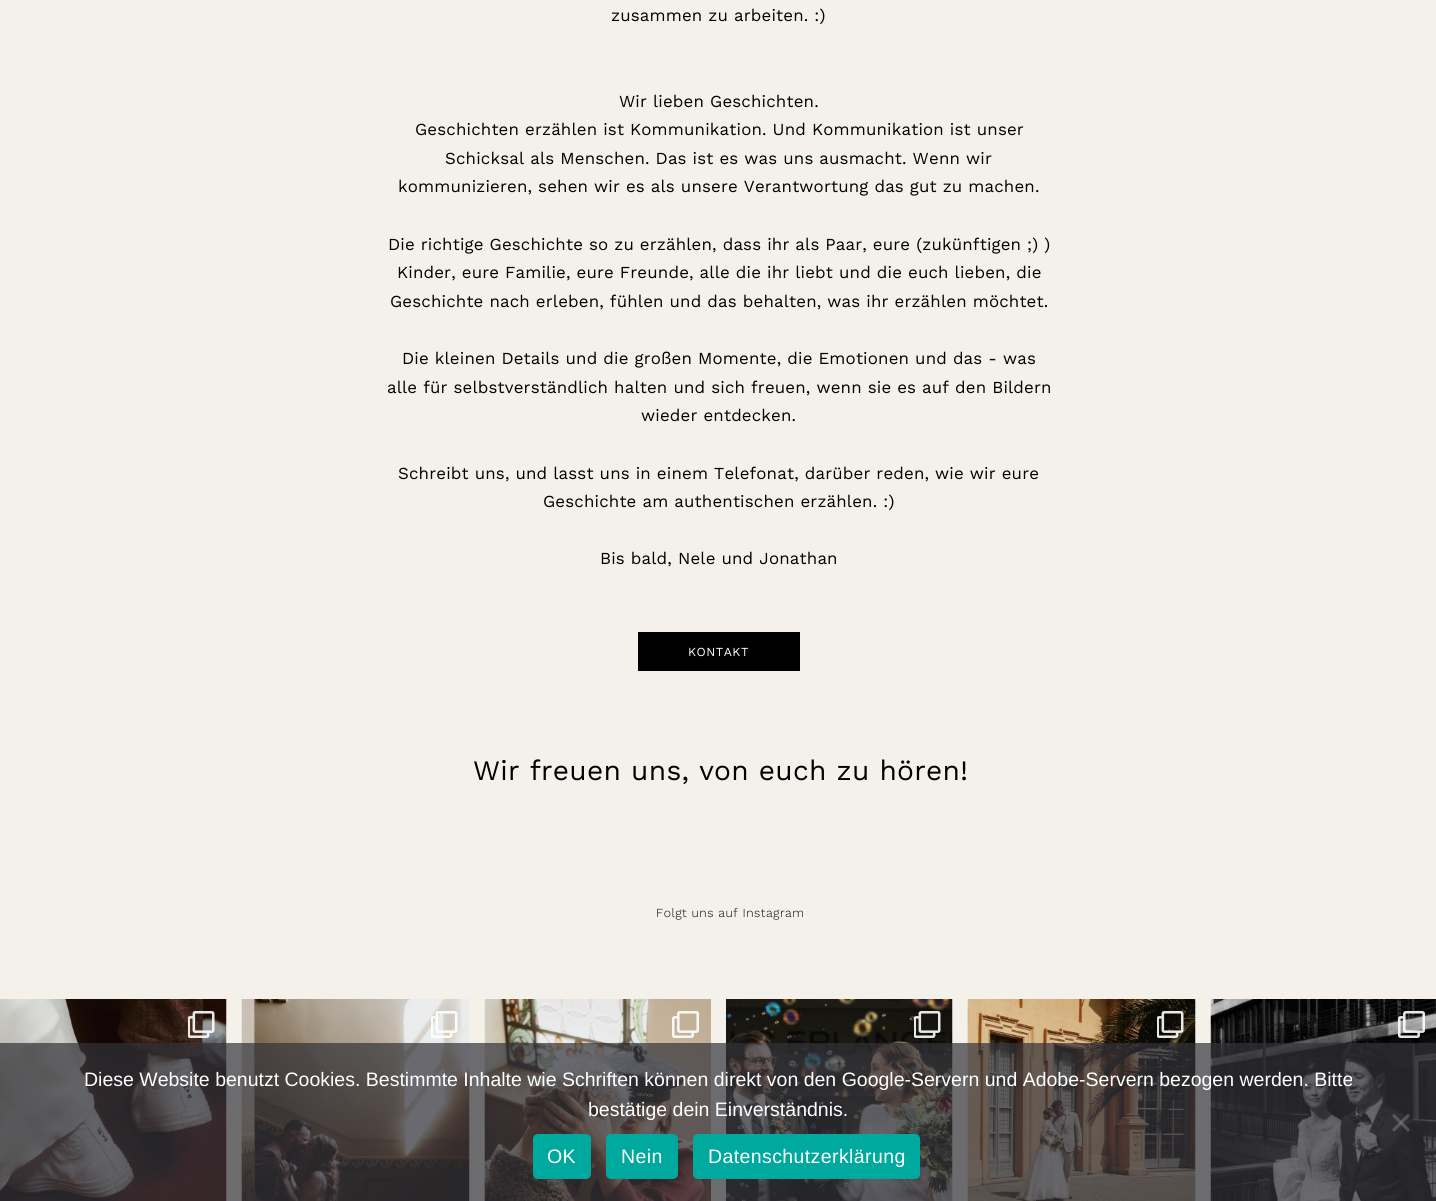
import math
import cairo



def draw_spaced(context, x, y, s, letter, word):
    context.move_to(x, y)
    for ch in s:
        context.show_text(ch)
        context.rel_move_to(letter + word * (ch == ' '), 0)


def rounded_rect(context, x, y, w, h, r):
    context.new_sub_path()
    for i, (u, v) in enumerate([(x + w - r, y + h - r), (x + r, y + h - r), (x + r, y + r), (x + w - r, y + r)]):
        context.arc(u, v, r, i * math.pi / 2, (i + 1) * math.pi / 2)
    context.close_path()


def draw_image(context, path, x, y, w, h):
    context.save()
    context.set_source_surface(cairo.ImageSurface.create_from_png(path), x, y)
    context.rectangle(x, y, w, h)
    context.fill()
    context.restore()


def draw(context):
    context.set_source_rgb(244 / 255, 241 / 255, 235 / 255)
    context.paint()
    context.set_source_rgb(0, 0, 0)
    context.rectangle(638, 632, 162, 39)
    context.fill()
    draw_image(context, "images/1.png", 0, 999, 227, 202)
    draw_image(context, "images/2.png", 188, 1011, 27, 27)
    draw_image(context, "images/3.png", 241, 999, 229, 202)
    draw_image(context, "images/4.png", 431, 1011, 27, 27)
    draw_image(context, "images/5.png", 484, 999, 227, 202)
    draw_image(context, "images/6.png", 672, 1011, 27, 27)
    draw_image(context, "images/7.png", 726, 999, 227, 202)
    draw_image(context, "images/8.png", 914, 1011, 27, 27)
    draw_image(context, "images/9.png", 967, 999, 229, 202)
    draw_image(context, "images/10.png", 1157, 1011, 27, 27)
    draw_image(context, "images/11.png", 1210, 999, 226, 202)
    draw_image(context, "images/12.png", 1398, 1011, 27, 27)
    context.set_source_rgba(50 / 255, 50 / 255, 58 / 255, 0.7)
    context.rectangle(0, 1043, 1436, 158)
    context.fill()
    context.set_source_rgba(128 / 255, 128 / 255, 128 / 255, 0.5)
    context.new_path()
    context.move_to(1408, 1113.5)
    context.line_to(1410, 1116)
    context.line_to(1394, 1132)
    context.line_to(1392, 1129.5)
    context.close_path()
    context.fill()
    context.new_path()
    context.move_to(1392, 1116)
    context.line_to(1394, 1113.5)
    context.line_to(1410, 1129.5)
    context.line_to(1408, 1132)
    context.close_path()
    context.fill()
    context.set_source_rgb(0, 169 / 255, 157 / 255)
    rounded_rect(context, 533, 1134, 58, 45, 5)
    context.fill()
    rounded_rect(context, 606, 1134, 72, 45, 5)
    context.fill()
    rounded_rect(context, 693, 1134, 227, 45, 5)
    context.fill()
    context.select_font_face("Work Sans")
    context.set_font_size(16.85)
    context.set_source_rgb(0, 0, 0)
    draw_spaced(context, 611, 21, "zusammen zu arbeiten. :)", 0.17, 0)
    draw_spaced(context, 619, 107, "Wir lieben Geschichten.", 0.17, 0)
    draw_spaced(context, 415, 135, "Geschichten erzählen ist Kommunikation. Und Kommunikation ist unser", 0.17, 0)
    draw_spaced(context, 445, 164, "Schicksal als Menschen. Das ist es was uns ausmacht. Wenn wir", 0.17, 0)
    draw_spaced(context, 398, 192, "kommunizieren, sehen wir es als unsere Verantwortung das gut zu machen.", 0.17, 0)
    draw_spaced(context, 388, 250, "Die richtige Geschichte so zu erzählen, dass ihr als Paar, eure (zukünftigen ;) )", 0.17, 0)
    draw_spaced(context, 397, 278, "Kinder, eure Familie, eure Freunde, alle die ihr liebt und die euch lieben, die", 0.17, 0)
    draw_spaced(context, 390, 307, "Geschichte nach erleben, fühlen und das behalten, was ihr erzählen möchtet.", 0.17, 0)
    draw_spaced(context, 402, 364, "Die kleinen Details und die großen Momente, die Emotionen und das - was", 0.17, 0)
    draw_spaced(context, 387, 393, "alle für selbstverständlich halten und sich freuen, wenn sie es auf den Bildern", 0.17, 0)
    draw_spaced(context, 641, 421, "wieder entdecken.", 0.17, 0)
    draw_spaced(context, 398, 479, "Schreibt uns, und lasst uns in einem Telefonat, darüber reden, wie wir eure", 0.17, 0)
    draw_spaced(context, 543, 507, "Geschichte am authentischen erzählen. :)", 0.17, 0)
    draw_spaced(context, 600, 564, "Bis bald, Nele und Jonathan", 0.17, 0)
    context.set_font_size(12.3)
    context.set_source_rgb(1, 1, 1)
    draw_spaced(context, 688, 656, "KONTAKT", 0.5, 0)
    context.set_font_size(28.1)
    context.set_source_rgb(0, 0, 0)
    draw_spaced(context, 473, 780, "Wir freuen uns, von euch zu hören!", 0.3, 0)
    context.select_font_face("Work Sans Light")
    context.set_font_size(12.3)
    draw_spaced(context, 656, 917, "Folgt uns auf Instagram", 0.5, 0)
    context.select_font_face("Liberation Sans")
    context.set_font_size(19.5)
    context.set_source_rgb(1, 1, 1)
    context.move_to(84, 1086)
    context.show_text("Diese Website benutzt Cookies. Bestimmte Inhalte wie Schriften können direkt von den Google-Servern und Adobe-Servern bezogen werden. Bitte")
    context.move_to(588, 1116)
    context.show_text("bestätige dein Einverständnis.")
    draw_spaced(context, 547, 1163, "OK", 0.4, 0)
    draw_spaced(context, 621, 1163, "Nein", 0.4, 0)
    draw_spaced(context, 708, 1163, "Datenschutzerklärung", 0.4, 0)


surface = cairo.ImageSurface(cairo.Format.RGB24, 1436, 1201)
context = cairo.Context(surface)
options = cairo.FontOptions()
options.set_hint_metrics(cairo.HintMetrics.OFF)
options.set_hint_style(cairo.HintStyle.NONE)
context.set_font_options(options)
context.set_miter_limit(4)
draw(context)
surface.write_to_png("out.png")
